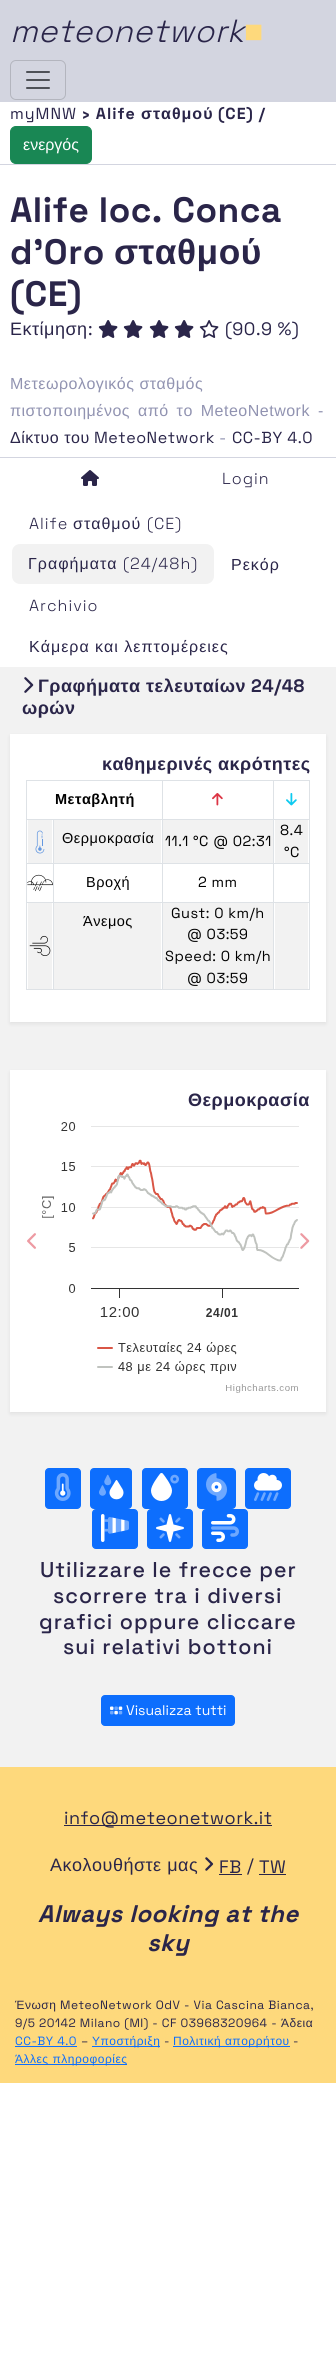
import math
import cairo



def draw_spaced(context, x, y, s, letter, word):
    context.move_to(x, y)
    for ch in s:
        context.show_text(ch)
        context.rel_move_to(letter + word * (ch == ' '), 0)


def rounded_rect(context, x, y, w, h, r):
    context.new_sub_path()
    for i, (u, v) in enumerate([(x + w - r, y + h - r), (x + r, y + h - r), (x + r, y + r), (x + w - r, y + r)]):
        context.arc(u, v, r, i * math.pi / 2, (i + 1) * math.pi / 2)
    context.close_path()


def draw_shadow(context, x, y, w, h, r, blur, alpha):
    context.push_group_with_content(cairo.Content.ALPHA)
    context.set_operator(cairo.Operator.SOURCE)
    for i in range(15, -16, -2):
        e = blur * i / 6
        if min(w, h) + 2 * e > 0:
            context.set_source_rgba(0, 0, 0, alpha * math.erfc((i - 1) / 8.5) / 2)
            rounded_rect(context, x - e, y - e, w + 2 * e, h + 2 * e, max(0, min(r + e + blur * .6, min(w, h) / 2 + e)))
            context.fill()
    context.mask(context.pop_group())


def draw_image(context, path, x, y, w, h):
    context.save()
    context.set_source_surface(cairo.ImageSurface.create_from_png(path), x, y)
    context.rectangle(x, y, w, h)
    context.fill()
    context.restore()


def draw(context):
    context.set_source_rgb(1, 1, 1)
    context.paint()
    context.set_source_rgb(211 / 255, 213 / 255, 224 / 255)
    context.rectangle(0, 0, 336, 102)
    context.fill()
    rounded_rect(context, 10.5, 60.5, 55, 39, 5.5)
    context.set_source_rgb(179 / 255, 181 / 255, 190 / 255)
    context.set_line_width(1)
    context.stroke()
    draw_image(context, "images/1.png", 26, 71, 24, 18)
    context.set_source_rgb(211 / 255, 213 / 255, 224 / 255)
    context.rectangle(0, 164, 336, 1)
    context.fill()
    context.set_source_rgb(25 / 255, 135 / 255, 84 / 255)
    rounded_rect(context, 10.5, 126.5, 81, 37, 5.5)
    context.fill_preserve()
    context.stroke()
    context.set_source_rgb(211 / 255, 213 / 255, 224 / 255)
    context.rectangle(0, 457, 336, 1)
    context.fill()
    draw_image(context, "images/2.png", 98, 320, 20, 18)
    draw_image(context, "images/2.png", 123, 320, 20, 18)
    draw_image(context, "images/2.png", 149, 320, 20, 18)
    draw_image(context, "images/2.png", 174, 320, 20, 18)
    draw_image(context, "images/3.png", 199, 320, 20, 18)
    draw_image(context, "images/4.png", 81, 470, 18, 16)
    context.set_source_rgb(242 / 255, 242 / 255, 242 / 255)
    rounded_rect(context, 12, 544, 202, 40, 8)
    context.fill()
    context.rectangle(0, 667, 336, 1100)
    context.fill()
    draw_image(context, "images/5.png", 24, 677, 10, 16)
    context.set_source_rgb(0, 0, 0)
    draw_shadow(context, 10, 736, 316, 288, 0, 2, 0.07)
    context.set_source_rgb(1, 1, 1)
    context.rectangle(10, 734, 316, 288)
    context.fill()
    context.set_source_rgb(222 / 255, 226 / 255, 230 / 255)
    context.rectangle(26, 780, 284, 1)
    context.fill()
    draw_image(context, "images/6.png", 212, 793, 11, 13)
    draw_image(context, "images/7.png", 286, 793, 11, 13)
    context.rectangle(26, 819, 284, 1)
    context.fill()
    context.set_source_rgb(242 / 255, 242 / 255, 242 / 255)
    context.rectangle(28, 820, 24, 43)
    context.fill()
    draw_image(context, "images/8.png", 35, 830, 10, 24)
    context.rectangle(54, 820, 107, 43)
    context.fill()
    context.rectangle(163, 820, 110, 43)
    context.fill()
    context.rectangle(275, 820, 33, 43)
    context.fill()
    context.set_source_rgb(222 / 255, 226 / 255, 230 / 255)
    context.rectangle(26, 863, 284, 1)
    context.fill()
    draw_image(context, "images/9.png", 27, 874, 26, 18)
    context.rectangle(26, 902, 284, 1)
    context.fill()
    context.rectangle(26, 989, 284, 1)
    context.fill()
    context.set_source_rgb(242 / 255, 242 / 255, 242 / 255)
    context.rectangle(28, 903, 24, 86)
    context.fill()
    context.set_source_rgb(222 / 255, 226 / 255, 230 / 255)
    context.rectangle(26, 780, 1, 210)
    context.fill()
    draw_image(context, "images/10.png", 29, 935, 22, 21)
    context.set_source_rgb(242 / 255, 242 / 255, 242 / 255)
    context.rectangle(54, 903, 107, 86)
    context.fill()
    context.set_source_rgb(222 / 255, 226 / 255, 230 / 255)
    context.rectangle(53, 819, 1, 171)
    context.fill()
    context.set_source_rgb(242 / 255, 242 / 255, 242 / 255)
    context.rectangle(163, 903, 110, 86)
    context.fill()
    context.set_source_rgb(222 / 255, 226 / 255, 230 / 255)
    context.rectangle(162, 780, 1, 210)
    context.fill()
    context.set_source_rgb(242 / 255, 242 / 255, 242 / 255)
    context.rectangle(275, 903, 33, 86)
    context.fill()
    context.set_source_rgb(222 / 255, 226 / 255, 230 / 255)
    context.rectangle(309, 780, 1, 210)
    context.fill()
    context.rectangle(273, 780, 1, 210)
    context.fill()
    context.set_source_rgb(0, 0, 0)
    draw_shadow(context, 10, 1072, 316, 342, 0, 2, 0.07)
    context.set_source_rgb(1, 1, 1)
    context.rectangle(10, 1070, 316, 342)
    context.fill()
    draw_image(context, "images/11.png", 42, 1122, 257, 271)
    draw_image(context, "images/12.png", 27, 1233, 9, 16)
    draw_image(context, "images/13.png", 300, 1233, 10, 16)
    context.set_source_rgb(13 / 255, 110 / 255, 253 / 255)
    rounded_rect(context, 45.5, 1468.5, 35, 40, 3.5)
    context.fill_preserve()
    context.stroke()
    draw_image(context, "images/14.png", 54, 1473, 17, 28)
    rounded_rect(context, 90.5, 1468.5, 41, 40, 3.5)
    context.fill_preserve()
    context.stroke()
    draw_image(context, "images/15.png", 99, 1474, 25, 26)
    rounded_rect(context, 142.5, 1468.5, 45, 40, 3.5)
    context.fill_preserve()
    context.stroke()
    draw_image(context, "images/16.png", 151, 1473, 28, 28)
    rounded_rect(context, 197.5, 1468.5, 38, 40, 3.5)
    context.fill_preserve()
    context.stroke()
    draw_image(context, "images/17.png", 206, 1473, 21, 28)
    rounded_rect(context, 245.5, 1468.5, 45, 40, 3.5)
    context.fill_preserve()
    context.stroke()
    draw_image(context, "images/18.png", 254, 1473, 28, 28)
    rounded_rect(context, 92.5, 1509.5, 45, 39, 3.5)
    context.fill_preserve()
    context.stroke()
    draw_image(context, "images/19.png", 101, 1514, 28, 28)
    rounded_rect(context, 147.5, 1509.5, 45, 39, 3.5)
    context.fill_preserve()
    context.stroke()
    draw_image(context, "images/20.png", 156, 1514, 28, 28)
    rounded_rect(context, 202.5, 1509.5, 45, 39, 3.5)
    context.fill_preserve()
    context.stroke()
    draw_image(context, "images/21.png", 211, 1514, 28, 28)
    rounded_rect(context, 101.5, 1695.5, 133, 30, 3.5)
    context.fill_preserve()
    context.stroke()
    draw_image(context, "images/22.png", 110, 1706, 13, 9)
    context.set_source_rgb(254 / 255, 217 / 255, 124 / 255)
    context.rectangle(0, 1767, 336, 316)
    context.fill()
    context.set_source_rgb(42 / 255, 37 / 255, 73 / 255)
    context.rectangle(64, 1825, 208, 1)
    context.fill()
    draw_image(context, "images/23.png", 205, 1857, 9, 14)
    context.rectangle(219, 1874, 23, 1)
    context.fill()
    context.rectangle(259, 1874, 27, 1)
    context.fill()
    context.set_source_rgb(13 / 255, 110 / 255, 253 / 255)
    context.rectangle(15, 2046, 62, 1)
    context.fill()
    context.rectangle(92, 2046, 68, 1)
    context.fill()
    context.rectangle(173, 2046, 117, 1)
    context.fill()
    context.rectangle(15, 2064, 112, 1)
    context.fill()
    context.select_font_face("Space Grotesk Light", cairo.FontSlant.ITALIC)
    context.set_font_size(32)
    context.set_source_rgb(42 / 255, 37 / 255, 73 / 255)
    draw_spaced(context, 10, 42, "meteonetwork", 0.5, 0)
    context.select_font_face("Liberation Sans", cairo.FontSlant.ITALIC)
    context.set_source_rgb(254 / 255, 217 / 255, 124 / 255)
    draw_spaced(context, 244, 42, "■", 0.5, 0)
    context.select_font_face("Space Grotesk")
    context.set_font_size(16)
    context.set_source_rgb(42 / 255, 37 / 255, 73 / 255)
    draw_spaced(context, 10, 119, "myMNW", 1, 0)
    context.select_font_face("Space Grotesk", cairo.FontSlant.NORMAL, cairo.FontWeight.BOLD)
    draw_spaced(context, 82, 119, "› Alife", 1, 0)
    context.select_font_face("Liberation Sans", cairo.FontSlant.NORMAL, cairo.FontWeight.BOLD)
    draw_spaced(context, 141, 119, "σταθμού", 1, 0)
    context.select_font_face("Space Grotesk", cairo.FontSlant.NORMAL, cairo.FontWeight.BOLD)
    draw_spaced(context, 218, 119, "(CE) /", 1, 0)
    context.select_font_face("Liberation Sans")
    context.set_source_rgb(1, 1, 1)
    context.move_to(23, 150)
    context.show_text("ενεργός")
    context.select_font_face("Space Grotesk", cairo.FontSlant.NORMAL, cairo.FontWeight.BOLD)
    context.set_font_size(35.25)
    context.set_source_rgb(42 / 255, 37 / 255, 73 / 255)
    draw_spaced(context, 10, 222, "Alife loc. Conca", 0.5, 0)
    draw_spaced(context, 10, 264, "d'Oro", 0.5, 0)
    context.select_font_face("Liberation Sans", cairo.FontSlant.NORMAL, cairo.FontWeight.BOLD)
    draw_spaced(context, 114, 264, "σταθμού", 0.5, 0)
    context.select_font_face("Space Grotesk", cairo.FontSlant.NORMAL, cairo.FontWeight.BOLD)
    draw_spaced(context, 10, 306, "(CE)", 0.5, 0)
    context.select_font_face("Liberation Sans")
    context.set_font_size(18)
    draw_spaced(context, 10, 335, "Εκτίμηση", 0.5, 0)
    context.select_font_face("Space Grotesk")
    draw_spaced(context, 88, 335, ":", 0.5, 0)
    draw_spaced(context, 225, 335, "(90.9 %)", 0.5, 0)
    context.select_font_face("Liberation Sans")
    context.set_font_size(16)
    context.set_source_rgb(145 / 255, 147 / 255, 177 / 255)
    draw_spaced(context, 10, 389, "Μετεωρολογικός σταθμός", 0.5, 0)
    draw_spaced(context, 10, 416, "πιστοποιημένος από το MeteoNetwork -", 0.5, 3)
    context.set_source_rgb(42 / 255, 37 / 255, 73 / 255)
    draw_spaced(context, 10, 443, "Δίκτυο του", 0.5, 0)
    context.select_font_face("Space Grotesk")
    draw_spaced(context, 94, 443, "MeteoNetwork", 0.5, 0)
    context.set_source_rgb(145 / 255, 147 / 255, 177 / 255)
    draw_spaced(context, 219, 443, "-", 0.5, 0)
    context.set_source_rgb(42 / 255, 37 / 255, 73 / 255)
    draw_spaced(context, 232, 443, "CC-BY 4.0", 0.5, 0)
    context.select_font_face("Space Grotesk Light")
    draw_spaced(context, 222, 484, "Login", 1, 0)
    draw_spaced(context, 29, 529, "Alife", 1, 0)
    context.select_font_face("Liberation Sans")
    draw_spaced(context, 73, 529, "σταθμού", 1, 0)
    context.select_font_face("Space Grotesk Light")
    draw_spaced(context, 147, 529, "(CE)", 1, 0)
    context.select_font_face("Liberation Sans")
    draw_spaced(context, 28, 569, "Γραφήματα", 1, 0)
    context.select_font_face("Space Grotesk Light")
    draw_spaced(context, 123, 569, "(24/48h)", 1, 0)
    context.select_font_face("Liberation Sans")
    draw_spaced(context, 231, 570, "Ρεκόρ", 1, 0)
    context.select_font_face("Space Grotesk Light")
    draw_spaced(context, 29, 611, "Archivio", 1, 0)
    context.select_font_face("Liberation Sans")
    draw_spaced(context, 29, 652, "Κάμερα και λεπτομέρειες", 1, 0)
    context.select_font_face("Liberation Sans", cairo.FontSlant.NORMAL, cairo.FontWeight.BOLD)
    context.set_font_size(18)
    draw_spaced(context, 38, 692, "Γραφήματα τελευταίων", 0.5, 0)
    context.select_font_face("Space Grotesk", cairo.FontSlant.NORMAL, cairo.FontWeight.BOLD)
    draw_spaced(context, 251, 692, "24/48", 0.5, 0)
    context.select_font_face("Liberation Sans", cairo.FontSlant.NORMAL, cairo.FontWeight.BOLD)
    draw_spaced(context, 22, 714, "ωρών", 0.5, 0)
    draw_spaced(context, 102, 770, "καθημερινές ακρότητες", 0.5, 0)
    context.set_font_size(14.5)
    context.set_source_rgb(0, 0, 0)
    draw_spaced(context, 55, 804, "Μεταβλητή", 0.5, 0)
    context.select_font_face("Liberation Sans")
    draw_spaced(context, 62, 843, "Θερμοκρασία", 0.5, 0)
    context.select_font_face("Space Grotesk")
    draw_spaced(context, 165, 846, "11.1 °C @ 02:31", 0.5, 0)
    draw_spaced(context, 280, 835, "8.4", 0.5, 0)
    draw_spaced(context, 284, 857, "°C", 0.5, 0)
    context.select_font_face("Liberation Sans")
    draw_spaced(context, 86, 887, "Βροχή", 0.5, 0)
    context.select_font_face("Space Grotesk")
    draw_spaced(context, 198, 887, "2 mm", 0.5, 0)
    context.select_font_face("Liberation Sans")
    draw_spaced(context, 83, 926, "Άνεμος", 0.5, 0)
    context.select_font_face("Space Grotesk")
    draw_spaced(context, 171, 918, "Gust: 0 km/h", 0.5, 0)
    draw_spaced(context, 187, 939, "@ 03:59", 0.5, 0)
    draw_spaced(context, 165, 961, "Speed: 0 km/h", 0.5, 0)
    draw_spaced(context, 187, 983, "@ 03:59", 0.5, 0)
    context.select_font_face("Liberation Sans", cairo.FontSlant.NORMAL, cairo.FontWeight.BOLD)
    context.set_font_size(18)
    context.set_source_rgb(42 / 255, 37 / 255, 73 / 255)
    draw_spaced(context, 188, 1106, "Θερμοκρασία", 0.5, 0)
    context.select_font_face("Space Grotesk Medium")
    context.set_font_size(21.4)
    draw_spaced(context, 40, 1577, "Utilizzare le frecce per", 1, 0)
    draw_spaced(context, 53, 1603, "scorrere tra i diversi", 1, 0)
    draw_spaced(context, 39, 1629, "grafici oppure cliccare", 1, 0)
    draw_spaced(context, 63, 1654, "sui relativi bottoni", 1, 0)
    context.select_font_face("Space Grotesk")
    context.set_font_size(14)
    context.set_source_rgb(1, 1, 1)
    context.move_to(126, 1715)
    context.show_text("Visualizza tutti")
    context.set_font_size(18)
    context.set_source_rgb(42 / 255, 37 / 255, 73 / 255)
    draw_spaced(context, 64, 1824, "info@meteonetwork.it", 0.5, 0)
    context.select_font_face("Liberation Sans")
    draw_spaced(context, 50, 1871, "Ακολουθήστε μας", 0.5, 0)
    context.select_font_face("Space Grotesk")
    draw_spaced(context, 219, 1873, "FB", 0.5, 0)
    draw_spaced(context, 247, 1871, "/", 0.5, 0)
    draw_spaced(context, 259, 1873, "TW", 0.5, 0)
    context.select_font_face("Space Grotesk", cairo.FontSlant.ITALIC, cairo.FontWeight.BOLD)
    context.set_font_size(24)
    draw_spaced(context, 38, 1922, "Always looking at the", 0.5, 0)
    draw_spaced(context, 147, 1951, "sky", 0.5, 0)
    context.select_font_face("Liberation Sans")
    context.set_font_size(12)
    draw_spaced(context, 15, 2009, "Ένωση", 0.5, 0)
    context.select_font_face("Space Grotesk")
    draw_spaced(context, 60, 2009, "MeteoNetwork OdV - Via Cascina Bianca,", 0.5, 0)
    draw_spaced(context, 15, 2027, "9/5 20142 Milano (MI) - CF 03968320964 -", 0.5, 0)
    context.select_font_face("Liberation Sans")
    draw_spaced(context, 281, 2027, "Άδεια", 0.5, 0)
    context.select_font_face("Space Grotesk")
    context.set_source_rgb(13 / 255, 110 / 255, 253 / 255)
    draw_spaced(context, 15, 2045, "CC-BY 4.0", 0.5, 0)
    context.set_source_rgb(42 / 255, 37 / 255, 73 / 255)
    draw_spaced(context, 81, 2045, "–", 0.5, 0)
    context.select_font_face("Liberation Sans")
    context.set_source_rgb(13 / 255, 110 / 255, 253 / 255)
    draw_spaced(context, 92, 2045, "Υποστήριξη", 0.5, 0)
    context.select_font_face("Space Grotesk")
    context.set_source_rgb(42 / 255, 37 / 255, 73 / 255)
    draw_spaced(context, 164, 2045, "-", 0.5, 0)
    context.select_font_face("Liberation Sans")
    context.set_source_rgb(13 / 255, 110 / 255, 253 / 255)
    draw_spaced(context, 173, 2045, "Πολιτική απορρήτου", 0.5, 0)
    context.select_font_face("Space Grotesk")
    context.set_source_rgb(42 / 255, 37 / 255, 73 / 255)
    draw_spaced(context, 293, 2045, "-", 0.5, 0)
    context.select_font_face("Liberation Sans")
    context.set_source_rgb(13 / 255, 110 / 255, 253 / 255)
    draw_spaced(context, 15, 2063, "Άλλες πληροφορίες", 0.5, 0)


surface = cairo.ImageSurface(cairo.Format.RGB24, 336, 2371)
context = cairo.Context(surface)
options = cairo.FontOptions()
options.set_hint_metrics(cairo.HintMetrics.OFF)
options.set_hint_style(cairo.HintStyle.NONE)
context.set_font_options(options)
context.set_miter_limit(4)
draw(context)
surface.write_to_png("out.png")
